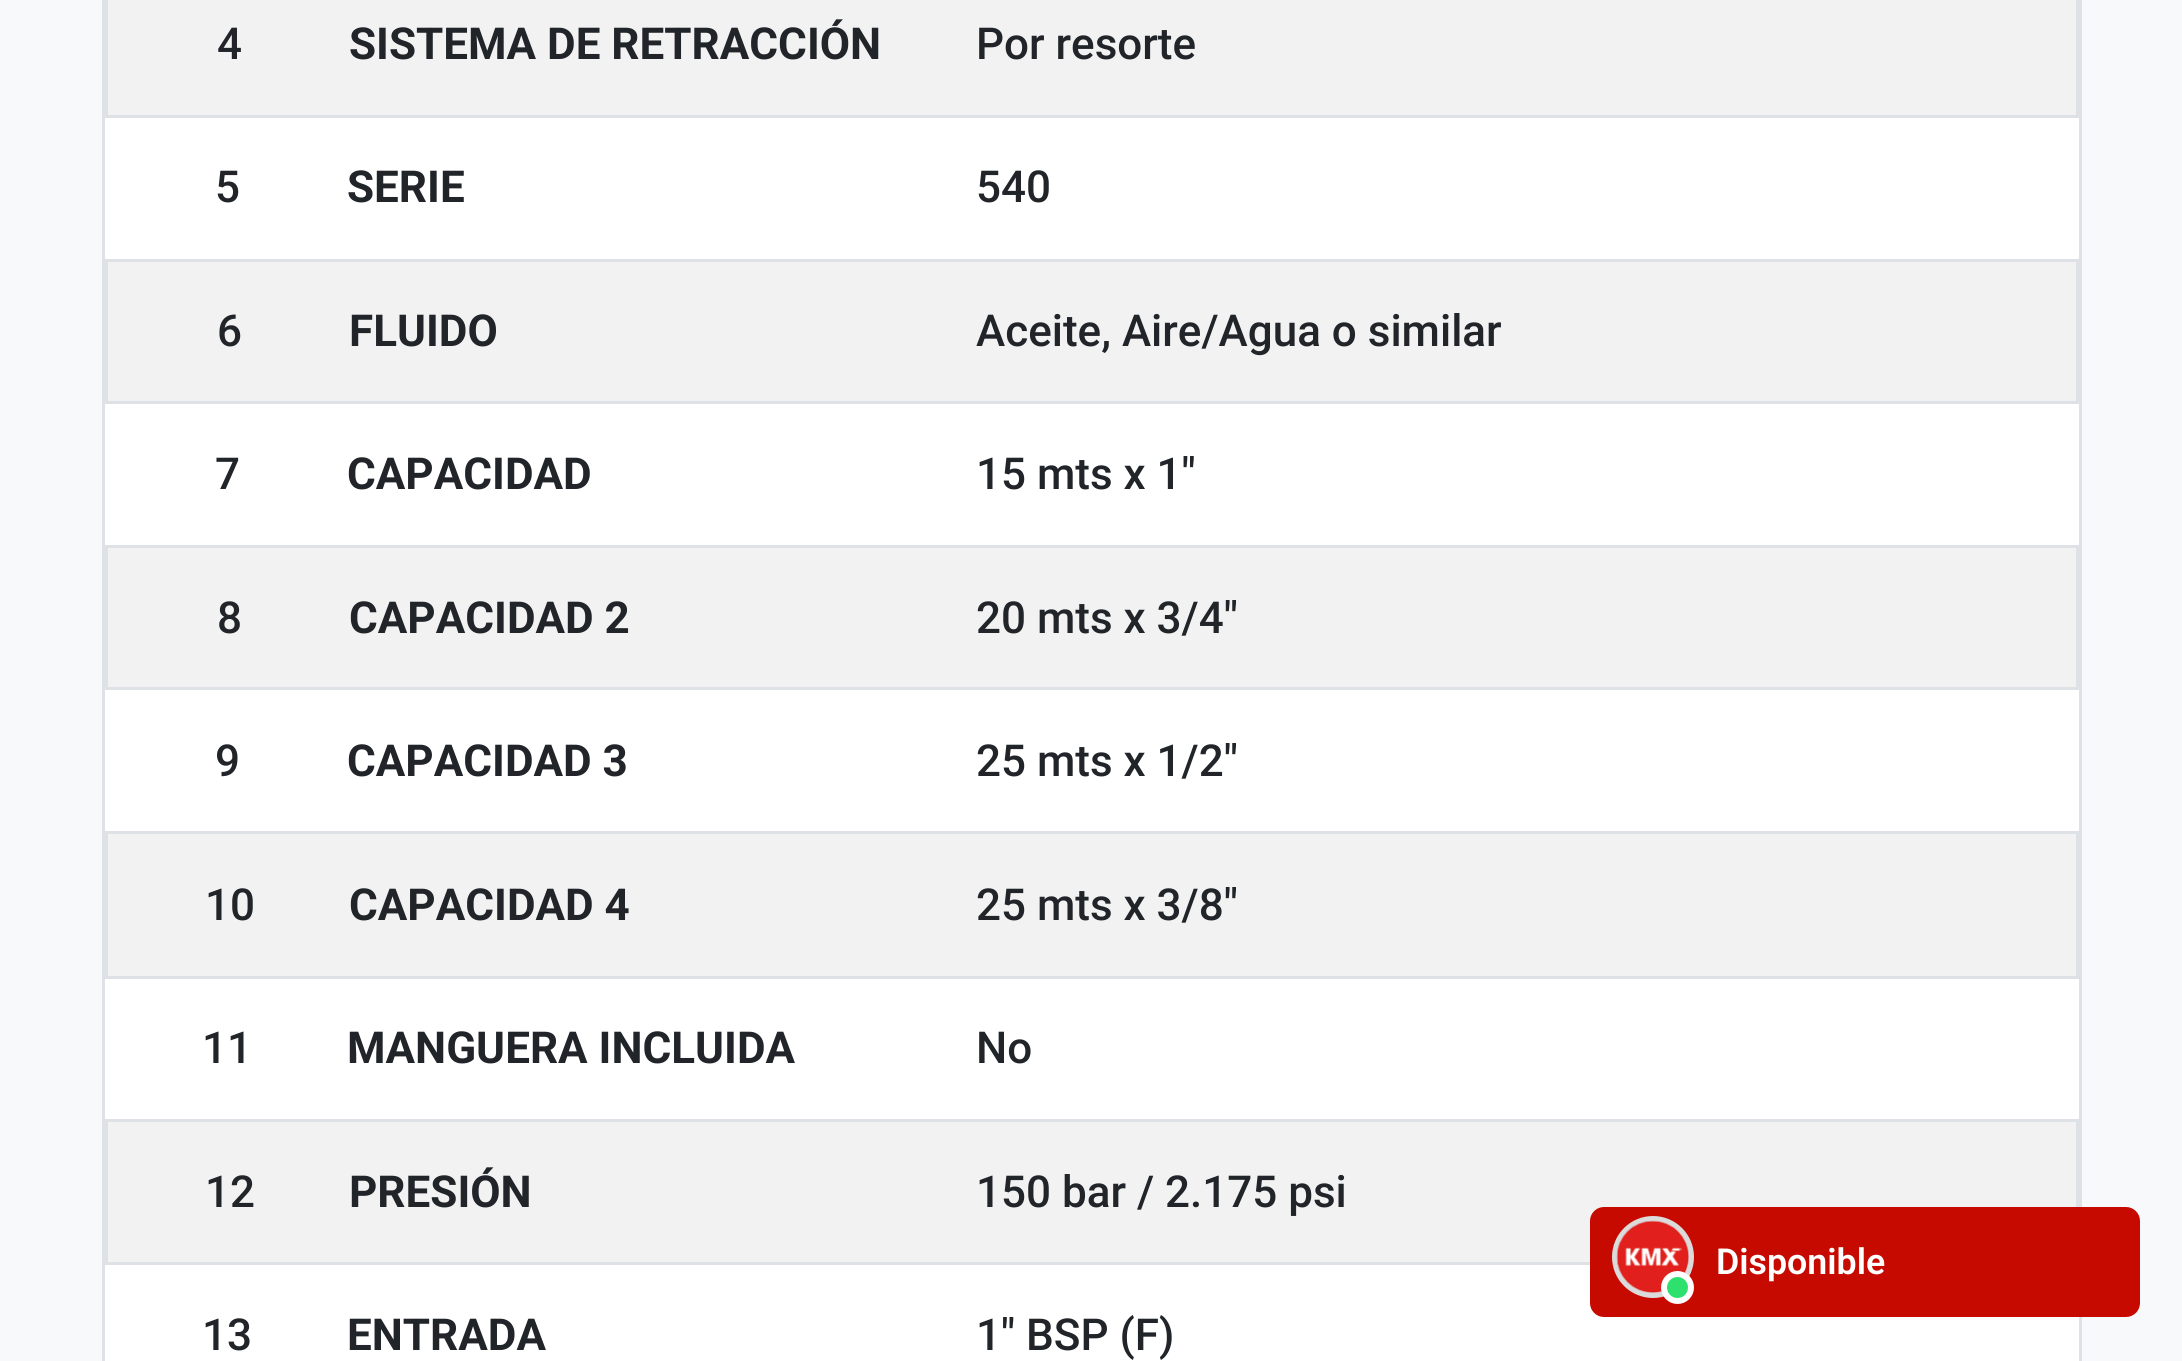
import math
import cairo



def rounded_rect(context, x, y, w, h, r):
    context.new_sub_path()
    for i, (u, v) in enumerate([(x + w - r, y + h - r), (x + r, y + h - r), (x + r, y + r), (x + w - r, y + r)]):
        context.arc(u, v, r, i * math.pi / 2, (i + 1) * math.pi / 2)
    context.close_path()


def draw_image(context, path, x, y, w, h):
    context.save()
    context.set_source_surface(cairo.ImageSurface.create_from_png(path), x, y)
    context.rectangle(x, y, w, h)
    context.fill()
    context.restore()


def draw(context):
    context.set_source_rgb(248 / 255, 249 / 255, 250 / 255)
    context.paint()
    context.rectangle(103.5, -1.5, 1977, 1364)
    context.set_source_rgb(222 / 255, 226 / 255, 230 / 255)
    context.set_line_width(3)
    context.stroke()
    context.set_source_rgb(242 / 255, 242 / 255, 242 / 255)
    context.rectangle(106.5, -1.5, 1971, 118)
    context.fill_preserve()
    context.set_source_rgb(222 / 255, 226 / 255, 230 / 255)
    context.stroke()
    context.set_source_rgb(1, 1, 1)
    context.rectangle(105, 118, 1974, 141)
    context.fill()
    context.set_source_rgb(242 / 255, 242 / 255, 242 / 255)
    context.rectangle(106.5, 260.5, 1971, 142)
    context.fill_preserve()
    context.set_source_rgb(222 / 255, 226 / 255, 230 / 255)
    context.stroke()
    context.set_source_rgb(1, 1, 1)
    context.rectangle(105, 404, 1974, 141)
    context.fill()
    context.set_source_rgb(242 / 255, 242 / 255, 242 / 255)
    context.rectangle(106.5, 546.5, 1971, 142)
    context.fill_preserve()
    context.set_source_rgb(222 / 255, 226 / 255, 230 / 255)
    context.stroke()
    context.set_source_rgb(1, 1, 1)
    context.rectangle(105, 690, 1974, 141)
    context.fill()
    context.set_source_rgb(242 / 255, 242 / 255, 242 / 255)
    context.rectangle(106.5, 832.5, 1971, 145)
    context.fill_preserve()
    context.set_source_rgb(222 / 255, 226 / 255, 230 / 255)
    context.stroke()
    context.set_source_rgb(1, 1, 1)
    context.rectangle(105, 979, 1974, 140)
    context.fill()
    context.set_source_rgb(242 / 255, 242 / 255, 242 / 255)
    context.rectangle(106.5, 1120.5, 1971, 143)
    context.fill_preserve()
    context.set_source_rgb(222 / 255, 226 / 255, 230 / 255)
    context.stroke()
    context.set_source_rgb(1, 1, 1)
    context.rectangle(105, 1265, 1974, 96)
    context.fill()
    context.set_source_rgb(198 / 255, 10 / 255, 0)
    rounded_rect(context, 1590, 1207, 550, 110, 14)
    context.fill()
    context.arc(1653, 1257, 38, 0, 2 * math.pi)
    context.set_source_rgb(219 / 255, 219 / 255, 219 / 255)
    context.set_line_width(6)
    context.stroke()
    draw_image(context, "images/1.png", 1616, 1220, 73, 73)
    context.set_source_rgb(46 / 255, 224 / 255, 109 / 255)
    context.arc(1677.5, 1287.5, 13.5, 0, 2 * math.pi)
    context.fill_preserve()
    context.set_source_rgb(1, 1, 1)
    context.stroke()
    context.select_font_face("Roboto Medium")
    context.set_font_size(44)
    context.set_source_rgb(33 / 255, 37 / 255, 41 / 255)
    context.move_to(217, 59)
    context.show_text("4")
    context.select_font_face("Roboto", cairo.FontSlant.NORMAL, cairo.FontWeight.BOLD)
    context.move_to(349, 59)
    context.show_text("SISTEMA DE RETRACCIÓN")
    context.select_font_face("Roboto Medium")
    context.move_to(976, 59)
    context.show_text("Por resorte")
    context.move_to(215, 202)
    context.show_text("5")
    context.select_font_face("Roboto", cairo.FontSlant.NORMAL, cairo.FontWeight.BOLD)
    context.move_to(347, 202)
    context.show_text("SERIE")
    context.select_font_face("Roboto Medium")
    context.move_to(976, 202)
    context.show_text("540")
    context.move_to(217, 346)
    context.show_text("6")
    context.select_font_face("Roboto", cairo.FontSlant.NORMAL, cairo.FontWeight.BOLD)
    context.move_to(349, 346)
    context.show_text("FLUIDO")
    context.select_font_face("Roboto Medium")
    context.move_to(976, 346)
    context.show_text("Aceite, Aire/Agua o similar")
    context.move_to(215, 489)
    context.show_text("7")
    context.select_font_face("Roboto", cairo.FontSlant.NORMAL, cairo.FontWeight.BOLD)
    context.move_to(347, 489)
    context.show_text("CAPACIDAD")
    context.select_font_face("Roboto Medium")
    context.move_to(976, 489)
    context.show_text("15 mts x 1\"")
    context.move_to(217, 633)
    context.show_text("8")
    context.select_font_face("Roboto", cairo.FontSlant.NORMAL, cairo.FontWeight.BOLD)
    context.move_to(349, 633)
    context.show_text("CAPACIDAD 2")
    context.select_font_face("Roboto Medium")
    context.move_to(976, 633)
    context.show_text("20 mts x 3/4\"")
    context.move_to(215, 776)
    context.show_text("9")
    context.select_font_face("Roboto", cairo.FontSlant.NORMAL, cairo.FontWeight.BOLD)
    context.move_to(347, 776)
    context.show_text("CAPACIDAD 3")
    context.select_font_face("Roboto Medium")
    context.move_to(976, 776)
    context.show_text("25 mts x 1/2\"")
    context.move_to(205, 920)
    context.show_text("10")
    context.select_font_face("Roboto", cairo.FontSlant.NORMAL, cairo.FontWeight.BOLD)
    context.move_to(349, 920)
    context.show_text("CAPACIDAD 4")
    context.select_font_face("Roboto Medium")
    context.move_to(976, 920)
    context.show_text("25 mts x 3/8\"")
    context.move_to(202, 1063)
    context.show_text("11")
    context.select_font_face("Roboto", cairo.FontSlant.NORMAL, cairo.FontWeight.BOLD)
    context.move_to(347, 1063)
    context.show_text("MANGUERA INCLUIDA")
    context.select_font_face("Roboto Medium")
    context.move_to(976, 1063)
    context.show_text("No")
    context.move_to(205, 1207)
    context.show_text("12")
    context.select_font_face("Roboto", cairo.FontSlant.NORMAL, cairo.FontWeight.BOLD)
    context.move_to(349, 1207)
    context.show_text("PRESIÓN")
    context.select_font_face("Roboto Medium")
    context.move_to(976, 1207)
    context.show_text("150 bar / 2.175 psi")
    context.move_to(202, 1350)
    context.show_text("13")
    context.select_font_face("Roboto", cairo.FontSlant.NORMAL, cairo.FontWeight.BOLD)
    context.move_to(347, 1350)
    context.show_text("ENTRADA")
    context.select_font_face("Roboto Medium")
    context.move_to(976, 1350)
    context.show_text("1\" BSP (F)")
    context.select_font_face("Roboto SemiBold")
    context.set_font_size(35.75)
    context.set_source_rgb(1, 1, 1)
    context.move_to(1716, 1274)
    context.show_text("Disponible")


surface = cairo.ImageSurface(cairo.Format.RGB24, 2182, 1361)
context = cairo.Context(surface)
options = cairo.FontOptions()
options.set_hint_metrics(cairo.HintMetrics.OFF)
options.set_hint_style(cairo.HintStyle.NONE)
context.set_font_options(options)
context.set_miter_limit(4)
draw(context)
surface.write_to_png("out.png")
